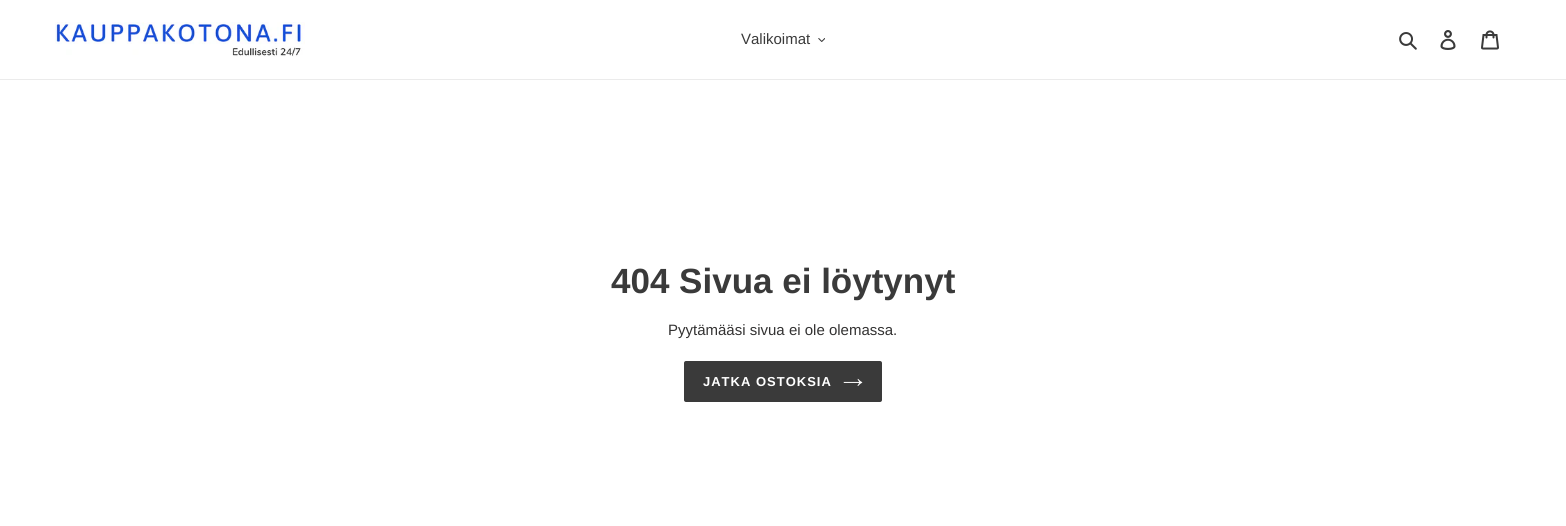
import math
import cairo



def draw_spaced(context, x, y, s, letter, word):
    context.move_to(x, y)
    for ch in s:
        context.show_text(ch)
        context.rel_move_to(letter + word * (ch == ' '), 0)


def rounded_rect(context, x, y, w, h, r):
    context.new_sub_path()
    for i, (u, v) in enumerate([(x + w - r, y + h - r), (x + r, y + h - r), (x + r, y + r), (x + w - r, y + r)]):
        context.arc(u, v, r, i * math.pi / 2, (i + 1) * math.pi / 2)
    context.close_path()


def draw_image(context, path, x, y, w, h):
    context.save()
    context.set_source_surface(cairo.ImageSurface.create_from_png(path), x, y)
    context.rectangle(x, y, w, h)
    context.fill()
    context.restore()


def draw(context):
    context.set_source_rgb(1, 1, 1)
    context.paint()
    context.set_source_rgb(235 / 255, 235 / 255, 235 / 255)
    context.rectangle(0, 79, 1566, 1)
    context.fill()
    draw_image(context, "images/1.png", 55, 22, 250, 35)
    draw_image(context, "images/2.png", 818, 38, 7, 4)
    draw_image(context, "images/3.png", 1399, 32, 18, 18)
    draw_image(context, "images/4.png", 1440, 30, 16, 20)
    draw_image(context, "images/5.png", 1481, 30, 18, 20)
    context.set_source_rgb(58 / 255, 58 / 255, 58 / 255)
    rounded_rect(context, 684, 361, 198, 41, 2)
    context.fill()
    draw_image(context, "images/6.png", 843, 378, 20, 8)
    context.select_font_face("Liberation Sans")
    context.set_font_size(15)
    context.move_to(741, 44)
    context.show_text("Valikoimat")
    context.select_font_face("Liberation Sans", cairo.FontSlant.NORMAL, cairo.FontWeight.BOLD)
    context.set_font_size(35)
    context.move_to(611, 293)
    context.show_text("404 Sivua ei löytynyt")
    context.select_font_face("Liberation Sans")
    context.set_font_size(15)
    context.set_source_rgb(51 / 255, 50 / 255, 50 / 255)
    context.move_to(668, 335)
    context.show_text("Pyytämääsi sivua ei ole olemassa.")
    context.select_font_face("Liberation Sans", cairo.FontSlant.NORMAL, cairo.FontWeight.BOLD)
    context.set_font_size(13)
    context.set_source_rgb(1, 1, 1)
    draw_spaced(context, 703, 386, "JATKA OSTOKSIA", 1, 0)


surface = cairo.ImageSurface(cairo.Format.RGB24, 1566, 526)
context = cairo.Context(surface)
options = cairo.FontOptions()
options.set_hint_metrics(cairo.HintMetrics.OFF)
options.set_hint_style(cairo.HintStyle.NONE)
context.set_font_options(options)
context.set_miter_limit(4)
draw(context)
surface.write_to_png("out.png")
